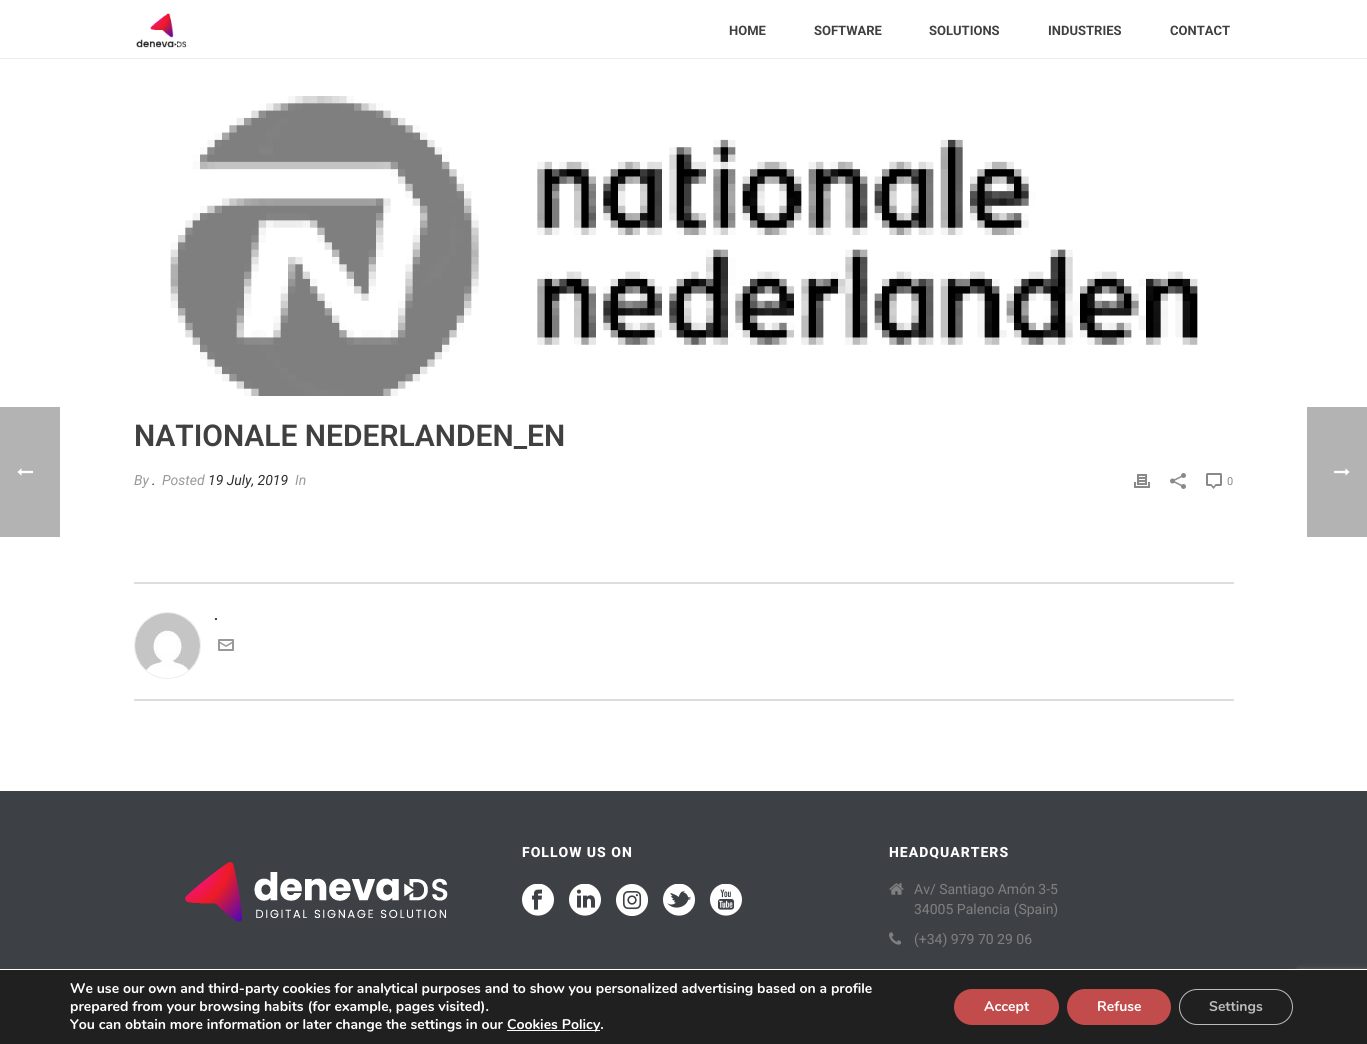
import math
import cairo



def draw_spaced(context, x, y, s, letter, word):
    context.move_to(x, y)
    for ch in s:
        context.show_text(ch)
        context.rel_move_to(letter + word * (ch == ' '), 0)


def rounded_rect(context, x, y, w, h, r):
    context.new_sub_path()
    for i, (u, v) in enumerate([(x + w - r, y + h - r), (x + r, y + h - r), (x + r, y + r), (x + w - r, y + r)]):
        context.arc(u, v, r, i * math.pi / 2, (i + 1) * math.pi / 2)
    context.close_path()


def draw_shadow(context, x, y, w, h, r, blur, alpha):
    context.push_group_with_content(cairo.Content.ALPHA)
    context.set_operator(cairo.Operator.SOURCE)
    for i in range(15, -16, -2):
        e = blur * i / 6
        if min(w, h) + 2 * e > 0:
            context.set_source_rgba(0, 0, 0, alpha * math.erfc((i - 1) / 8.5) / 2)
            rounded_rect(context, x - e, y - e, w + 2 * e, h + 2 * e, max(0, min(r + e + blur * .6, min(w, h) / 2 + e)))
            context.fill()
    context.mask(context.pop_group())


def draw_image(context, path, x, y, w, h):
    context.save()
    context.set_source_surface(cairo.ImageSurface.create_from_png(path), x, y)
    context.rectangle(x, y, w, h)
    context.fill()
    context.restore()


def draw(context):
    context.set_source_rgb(1, 1, 1)
    context.paint()
    context.set_source_rgb(179 / 255, 179 / 255, 179 / 255)
    context.rectangle(0, 407, 60, 130)
    context.fill()
    draw_image(context, "images/1.png", 17, 468, 16, 8)
    context.set_source_rgb(237 / 255, 237 / 255, 237 / 255)
    context.rectangle(0, 58, 1367, 1)
    context.fill()
    draw_image(context, "images/2.png", 136, 13, 51, 35)
    draw_image(context, "images/3.png", 170, 96, 1028, 300)
    draw_image(context, "images/4.png", 1134, 474, 16, 14)
    draw_image(context, "images/5.png", 1170, 473, 16, 16)
    draw_image(context, "images/6.png", 1206, 473, 16, 16)
    context.set_source_rgb(221 / 255, 221 / 255, 221 / 255)
    context.rectangle(134, 582, 1100, 2)
    context.fill()
    context.rectangle(134, 699, 1100, 2)
    context.fill()
    context.arc(167.5, 645.5, 33, 0, 2 * math.pi)
    context.set_source_rgb(238 / 255, 238 / 255, 238 / 255)
    context.set_line_width(1)
    context.stroke()
    draw_image(context, "images/7.png", 135, 613, 65, 57)
    draw_image(context, "images/8.png", 218, 639, 16, 12)
    context.set_source_rgb(61 / 255, 64 / 255, 69 / 255)
    context.rectangle(0, 791, 1367, 178)
    context.fill()
    draw_image(context, "images/9.png", 185, 862, 263, 60)
    draw_image(context, "images/10.png", 522, 884, 32, 32)
    draw_image(context, "images/11.png", 569, 884, 32, 32)
    draw_image(context, "images/12.png", 616, 884, 32, 32)
    draw_image(context, "images/13.png", 663, 884, 32, 32)
    draw_image(context, "images/14.png", 710, 884, 32, 32)
    draw_image(context, "images/15.png", 889, 883, 15, 12)
    draw_image(context, "images/16.png", 889, 932, 12, 13)
    context.set_source_rgb(179 / 255, 179 / 255, 179 / 255)
    context.rectangle(1307, 407, 60, 130)
    context.fill()
    draw_image(context, "images/17.png", 1334, 468, 16, 8)
    context.set_source_rgb(128 / 255, 128 / 255, 128 / 255)
    draw_shadow(context, 1297, 970, 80, 60, 2, 2.5, 1)
    context.set_source_rgb(32 / 255, 32 / 255, 32 / 255)
    context.rectangle(0, 970, 1367, 74)
    context.fill()
    context.set_source_rgb(1, 1, 1)
    context.rectangle(1293, 969, 74, 1)
    context.fill()
    context.rectangle(507, 1030, 93, 1)
    context.fill()
    context.set_source_rgb(194 / 255, 76 / 255, 76 / 255)
    rounded_rect(context, 954, 989, 105, 36, 18)
    context.fill()
    rounded_rect(context, 1067, 989, 104, 36, 18)
    context.fill()
    rounded_rect(context, 1179.5, 989.5, 113, 35, 17.5)
    context.set_source_rgb(188 / 255, 188 / 255, 188 / 255)
    context.stroke()
    context.select_font_face("Roboto", cairo.FontSlant.NORMAL, cairo.FontWeight.BOLD)
    context.set_font_size(13)
    context.set_source_rgb(64 / 255, 64 / 255, 64 / 255)
    context.move_to(729, 35)
    context.show_text("HOME")
    context.move_to(814, 35)
    context.show_text("SOFTWARE")
    context.move_to(929, 35)
    context.show_text("SOLUTIONS")
    context.move_to(1048, 35)
    context.show_text("INDUSTRIES")
    context.move_to(1170, 35)
    context.show_text("CONTACT")
    context.select_font_face("Roboto SemiBold")
    context.set_font_size(30)
    context.move_to(134, 446)
    context.show_text("NATIONALE NEDERLANDEN_EN")
    context.select_font_face("Roboto", cairo.FontSlant.ITALIC)
    context.set_font_size(14)
    context.set_source_rgb(153 / 255, 153 / 255, 153 / 255)
    context.move_to(134, 485)
    context.show_text("By")
    context.set_source_rgb(46 / 255, 46 / 255, 46 / 255)
    context.move_to(152, 485)
    context.show_text(".")
    context.set_source_rgb(153 / 255, 153 / 255, 153 / 255)
    context.move_to(162, 485)
    context.show_text("Posted")
    context.set_source_rgb(46 / 255, 46 / 255, 46 / 255)
    context.move_to(208, 485)
    context.show_text("19 July, 2019")
    context.set_source_rgb(153 / 255, 153 / 255, 153 / 255)
    context.move_to(295, 485)
    context.show_text("In")
    context.select_font_face("Roboto")
    context.set_font_size(11)
    context.set_source_rgb(137 / 255, 137 / 255, 137 / 255)
    context.move_to(1227, 485)
    context.show_text("0")
    context.select_font_face("Roboto", cairo.FontSlant.NORMAL, cairo.FontWeight.BOLD)
    context.set_font_size(14)
    context.set_source_rgb(46 / 255, 46 / 255, 46 / 255)
    context.move_to(214, 620)
    context.show_text(".")
    context.select_font_face("Roboto ExtraBold")
    context.set_source_rgb(1, 1, 1)
    draw_spaced(context, 522, 857, "FOLLOW US ON", 1, 0)
    draw_spaced(context, 889, 857, "HEADQUARTERS", 1, 0)
    context.select_font_face("Roboto")
    context.set_source_rgb(128 / 255, 128 / 255, 128 / 255)
    context.move_to(914, 894)
    context.show_text("Av/ Santiago Amón 3-5")
    context.move_to(914, 914)
    context.show_text("34005 Palencia (Spain)")
    context.move_to(914, 944)
    context.show_text("(+34) 979 70 29 06")
    context.select_font_face("Nunito", cairo.FontSlant.NORMAL, cairo.FontWeight.BOLD)
    context.set_source_rgb(1, 1, 1)
    context.move_to(70, 993)
    context.show_text("We use our own and third-party cookies for analytical purposes and to show you personalized advertising based on a profile")
    context.move_to(70, 1011)
    context.show_text("prepared from your browsing habits (for example, pages visited).")
    context.move_to(70, 1029)
    context.show_text("You can obtain more information or later change the settings in our")
    context.move_to(507, 1029)
    context.show_text("Cookies Policy.")
    context.move_to(984, 1011)
    context.show_text("Accept")
    context.move_to(1097, 1011)
    context.show_text("Refuse")
    context.set_source_rgb(188 / 255, 188 / 255, 188 / 255)
    context.move_to(1209, 1011)
    context.show_text("Settings")


surface = cairo.ImageSurface(cairo.Format.RGB24, 1367, 1044)
context = cairo.Context(surface)
options = cairo.FontOptions()
options.set_hint_metrics(cairo.HintMetrics.OFF)
options.set_hint_style(cairo.HintStyle.NONE)
context.set_font_options(options)
context.set_miter_limit(4)
draw(context)
surface.write_to_png("out.png")
